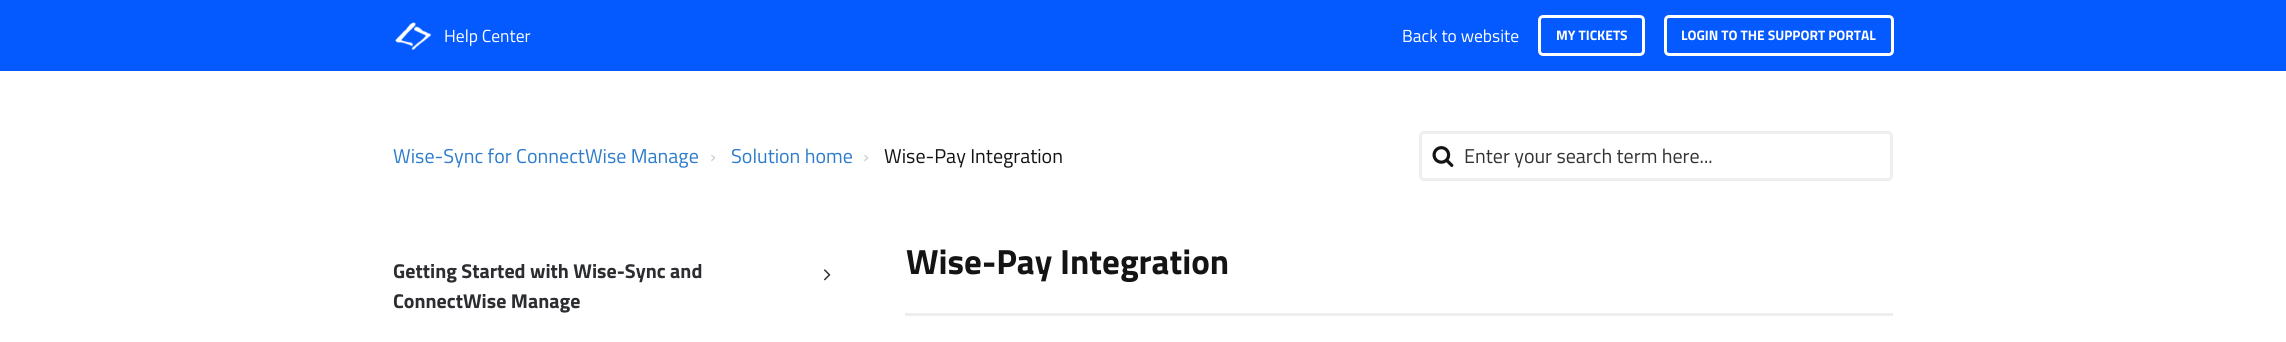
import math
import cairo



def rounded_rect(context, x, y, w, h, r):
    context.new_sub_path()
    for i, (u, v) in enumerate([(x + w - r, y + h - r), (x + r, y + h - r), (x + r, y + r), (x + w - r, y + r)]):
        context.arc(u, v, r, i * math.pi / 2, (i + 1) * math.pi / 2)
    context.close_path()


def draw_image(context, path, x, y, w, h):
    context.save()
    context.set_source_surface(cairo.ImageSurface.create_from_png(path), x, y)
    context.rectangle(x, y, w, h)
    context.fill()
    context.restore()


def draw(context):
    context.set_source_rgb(1, 1, 1)
    context.paint()
    context.set_source_rgb(4 / 255, 90 / 255, 1)
    context.rectangle(0, 0, 2286, 71)
    context.fill()
    draw_image(context, "images/1.png", 395, 22, 37, 28)
    rounded_rect(context, 1539.5, 16.5, 104, 38, 3.5)
    context.set_source_rgb(1, 1, 1)
    context.set_line_width(3)
    context.stroke()
    rounded_rect(context, 1665.5, 16.5, 227, 38, 3.5)
    context.stroke()
    rounded_rect(context, 1420.5, 132.5, 471, 47, 3.5)
    context.set_source_rgb(236 / 255, 238 / 255, 239 / 255)
    context.stroke()
    draw_image(context, "images/2.png", 1432, 146, 22, 21)
    draw_image(context, "images/3.png", 823, 269, 8, 12)
    context.rectangle(905, 313, 988, 3)
    context.fill()
    context.select_font_face("Titillium Web")
    context.set_font_size(17.5)
    context.set_source_rgb(1, 1, 1)
    context.move_to(444, 42)
    context.show_text("Help Center")
    context.move_to(1402, 42)
    context.show_text("Back to website")
    context.select_font_face("Titillium Web", cairo.FontSlant.NORMAL, cairo.FontWeight.BOLD)
    context.set_font_size(13.75)
    context.move_to(1556, 40)
    context.show_text("MY TICKETS")
    context.move_to(1681, 40)
    context.show_text("LOGIN TO THE SUPPORT PORTAL")
    context.select_font_face("Titillium Web")
    context.set_font_size(20)
    context.set_source_rgb(45 / 255, 124 / 255, 204 / 255)
    context.move_to(393, 163)
    context.show_text("Wise-Sync for ConnectWise Manage")
    context.set_source_rgb(204 / 255, 204 / 255, 204 / 255)
    context.move_to(710, 163)
    context.show_text("›")
    context.set_source_rgb(45 / 255, 124 / 255, 204 / 255)
    context.move_to(731, 163)
    context.show_text("Solution home")
    context.set_source_rgb(204 / 255, 204 / 255, 204 / 255)
    context.move_to(863, 163)
    context.show_text("›")
    context.set_source_rgb(21 / 255, 20 / 255, 21 / 255)
    context.move_to(884, 163)
    context.show_text("Wise-Pay Integration")
    context.set_source_rgb(51 / 255, 51 / 255, 51 / 255)
    context.move_to(1464, 163)
    context.show_text("Enter your search term here...")
    context.select_font_face("Titillium Web", cairo.FontSlant.NORMAL, cairo.FontWeight.BOLD)
    context.set_source_rgb(44 / 255, 45 / 255, 48 / 255)
    context.move_to(393, 278)
    context.show_text("Getting Started with Wise-Sync and")
    context.move_to(393, 308)
    context.show_text("ConnectWise Manage")
    context.set_font_size(35)
    context.set_source_rgb(21 / 255, 20 / 255, 21 / 255)
    context.move_to(906, 274)
    context.show_text("Wise-Pay Integration")


surface = cairo.ImageSurface(cairo.Format.RGB24, 2286, 342)
context = cairo.Context(surface)
options = cairo.FontOptions()
options.set_hint_metrics(cairo.HintMetrics.OFF)
options.set_hint_style(cairo.HintStyle.NONE)
context.set_font_options(options)
context.set_miter_limit(4)
draw(context)
surface.write_to_png("out.png")
